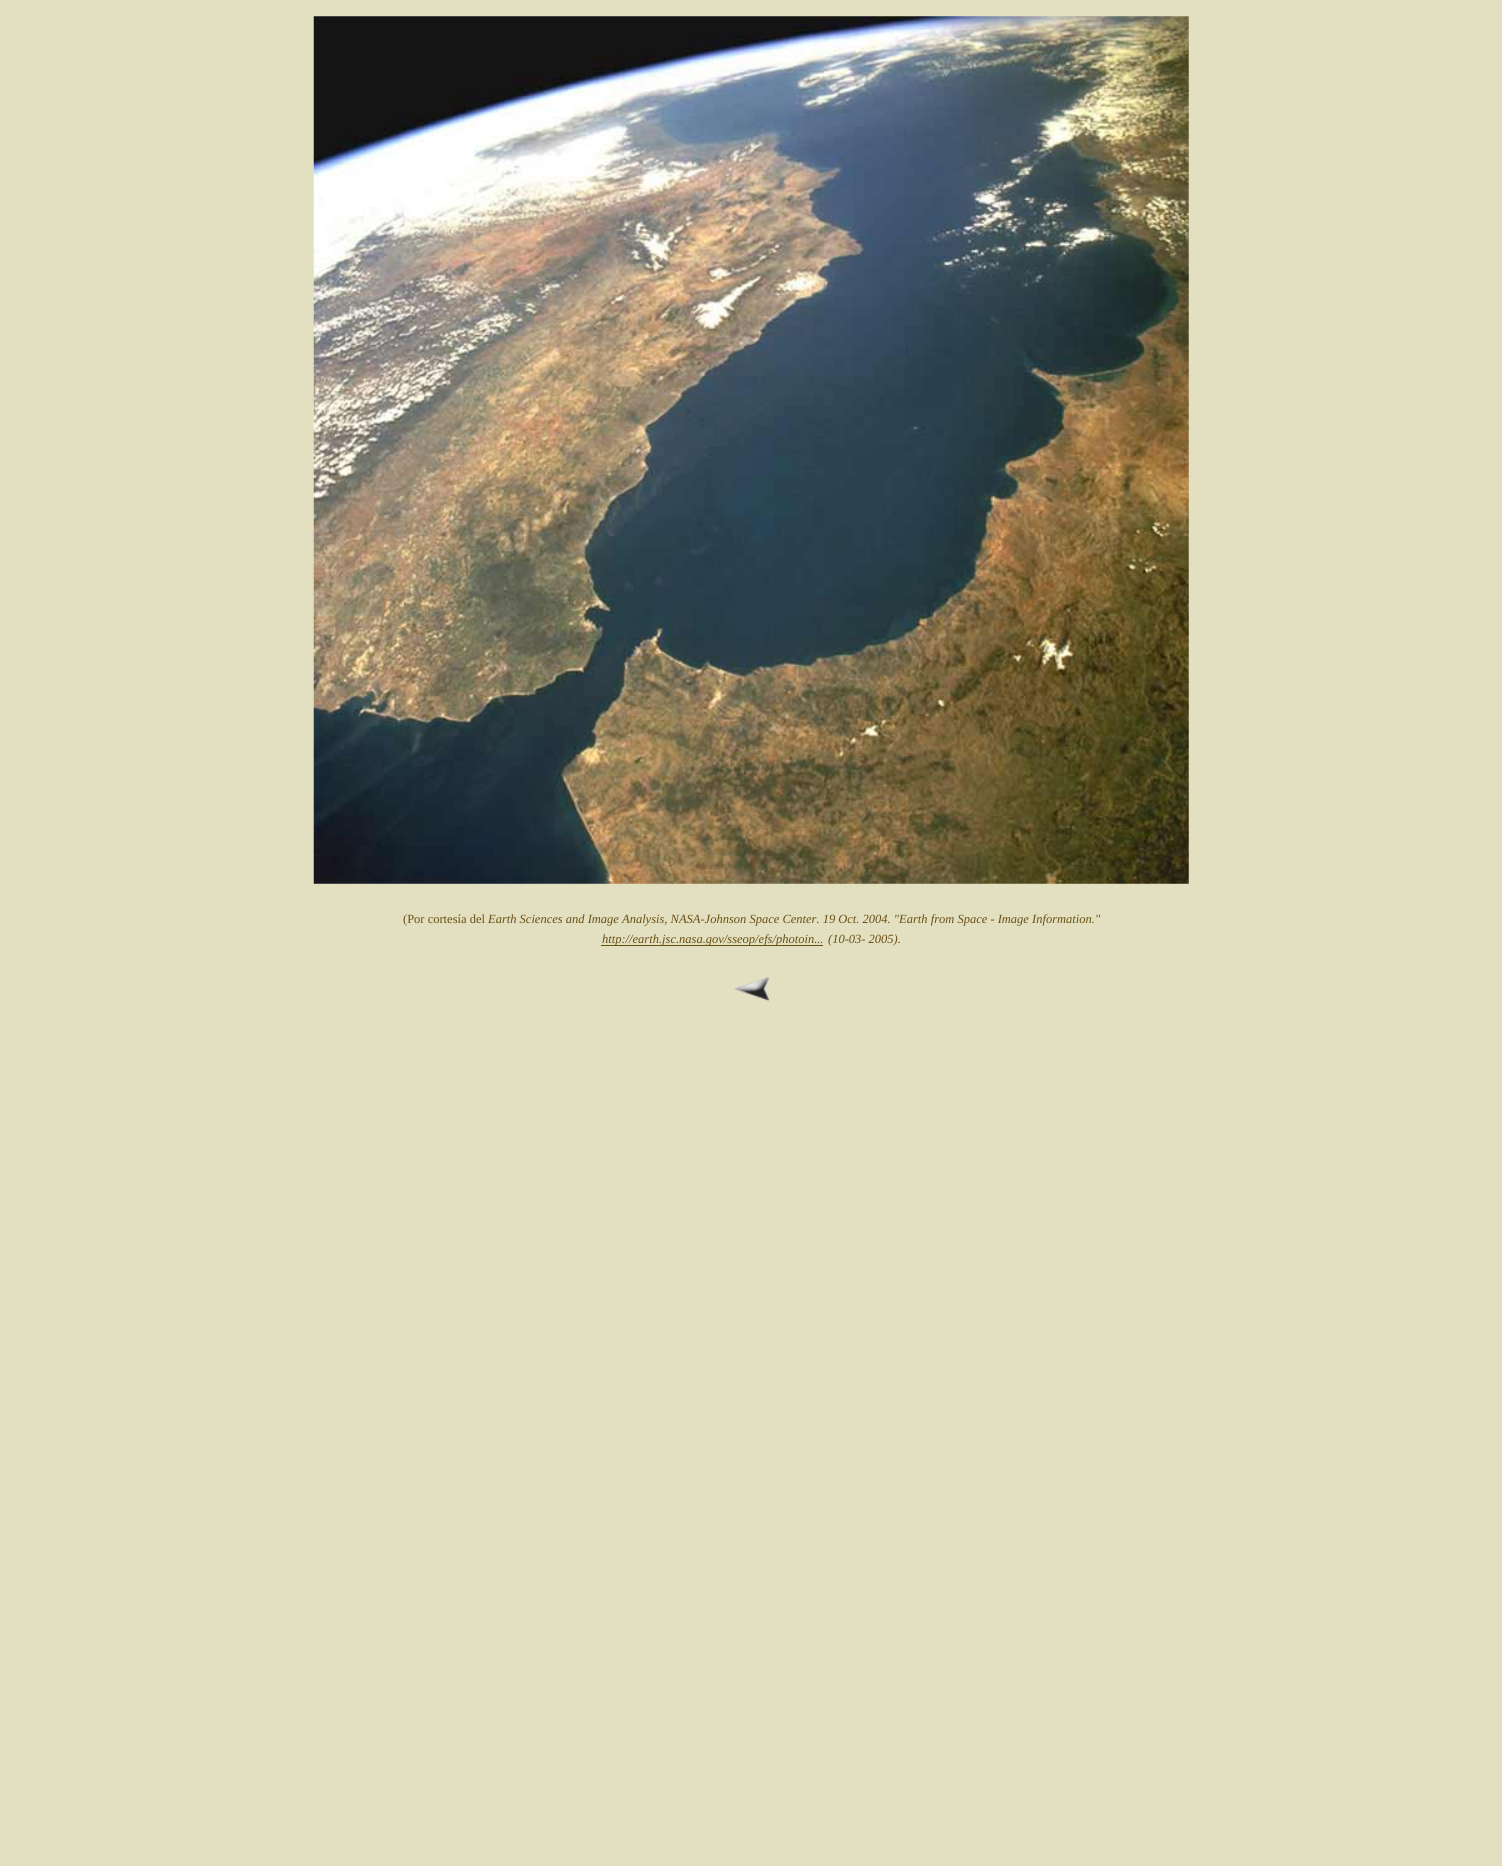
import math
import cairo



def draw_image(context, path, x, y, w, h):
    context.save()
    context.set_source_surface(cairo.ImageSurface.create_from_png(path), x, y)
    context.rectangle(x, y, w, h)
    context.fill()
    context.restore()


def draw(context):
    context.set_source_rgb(226 / 255, 224 / 255, 192 / 255)
    context.paint()
    draw_image(context, "images/1.png", 313, 16, 876, 868)
    context.set_source_rgb(106 / 255, 78 / 255, 19 / 255)
    context.rectangle(601, 945, 222, 1)
    context.fill()
    draw_image(context, "images/2.png", 735, 977, 34, 25)
    context.select_font_face("Liberation Serif")
    context.set_font_size(12.5)
    context.move_to(403, 923)
    context.show_text("(Por cortesía del")
    context.select_font_face("Liberation Serif", cairo.FontSlant.ITALIC)
    context.move_to(488, 923)
    context.show_text("Earth Sciences and Image Analysis, NASA-Johnson Space Center. 19 Oct. 2004. \"Earth from Space - Image Information.\"")
    context.move_to(602, 943)
    context.show_text("http://earth.jsc.nasa.gov/sseop/efs/photoin...")
    context.move_to(828, 943)
    context.show_text("(10-03- 2005).")


surface = cairo.ImageSurface(cairo.Format.RGB24, 1502, 1866)
context = cairo.Context(surface)
options = cairo.FontOptions()
options.set_hint_metrics(cairo.HintMetrics.OFF)
options.set_hint_style(cairo.HintStyle.NONE)
context.set_font_options(options)
context.set_miter_limit(4)
draw(context)
surface.write_to_png("out.png")
